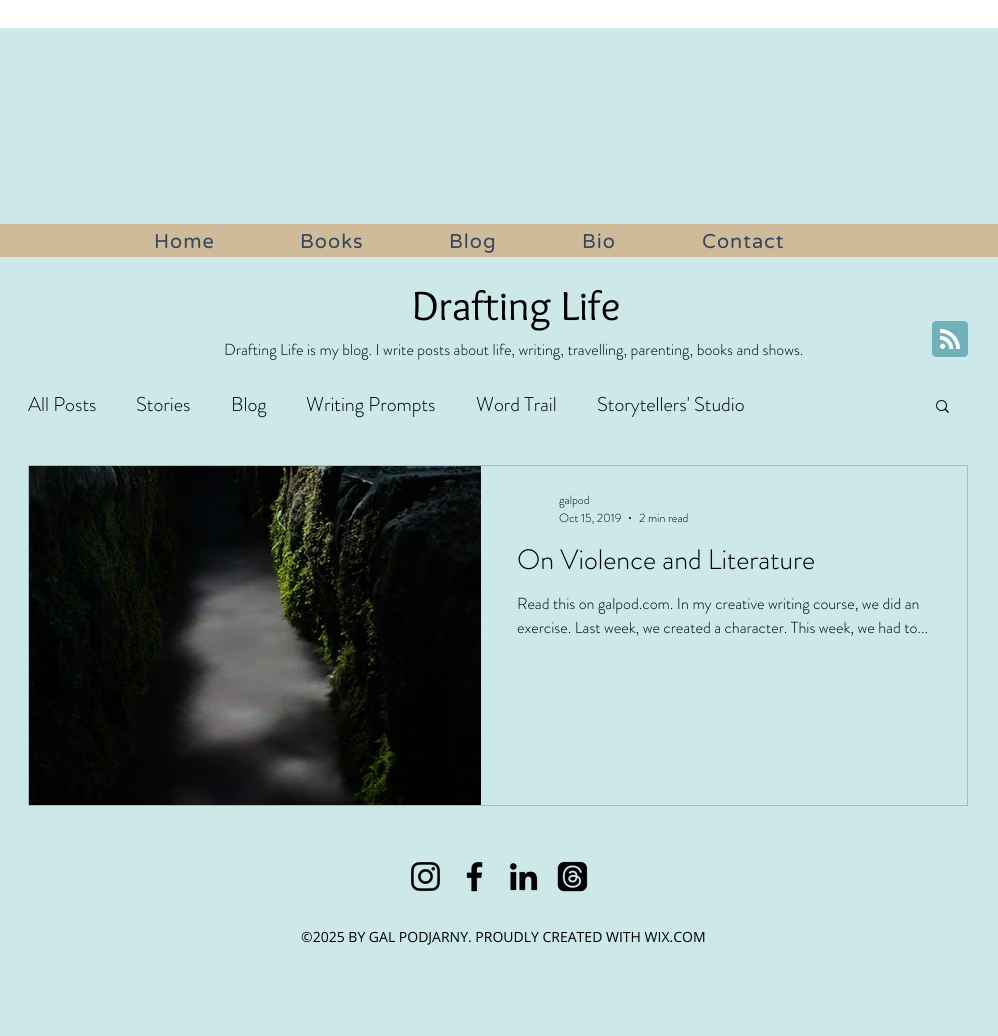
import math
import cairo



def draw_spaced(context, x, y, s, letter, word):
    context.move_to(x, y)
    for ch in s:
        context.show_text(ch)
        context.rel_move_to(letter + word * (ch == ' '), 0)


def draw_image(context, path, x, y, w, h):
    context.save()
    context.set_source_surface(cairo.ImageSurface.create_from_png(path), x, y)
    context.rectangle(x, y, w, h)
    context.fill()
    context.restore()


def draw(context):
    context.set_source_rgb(204 / 255, 232 / 255, 233 / 255)
    context.paint()
    context.set_source_rgb(1, 1, 1)
    context.rectangle(0, 0, 998, 28)
    context.fill()
    context.set_source_rgb(207 / 255, 187 / 255, 154 / 255)
    context.rectangle(0, 224, 998, 33)
    context.fill()
    draw_image(context, "images/1.png", 932, 321, 36, 36)
    draw_image(context, "images/2.png", 936, 400, 13, 13)
    context.rectangle(28.5, 465.5, 939, 340)
    context.set_source_rgb(166 / 255, 189 / 255, 190 / 255)
    context.set_line_width(1)
    context.stroke()
    draw_image(context, "images/3.png", 29, 466, 452, 339)
    context.set_source_rgb(0, 0, 0)
    context.arc(630, 518, 1, 0, 2 * math.pi)
    context.fill()
    draw_image(context, "images/4.png", 411, 862, 29, 29)
    draw_image(context, "images/5.png", 466, 862, 17, 30)
    draw_image(context, "images/6.png", 509, 863, 29, 28)
    draw_image(context, "images/7.png", 557, 861, 31, 31)
    context.select_font_face("Varela Round")
    context.set_font_size(20)
    context.set_source_rgb(51 / 255, 70 / 255, 91 / 255)
    draw_spaced(context, 154, 248, "Home", 1, 0)
    draw_spaced(context, 300, 248, "Books", 1, 0)
    draw_spaced(context, 449, 248, "Blog", 1, 0)
    draw_spaced(context, 582, 248, "Bio", 1, 0)
    draw_spaced(context, 702, 248, "Contact", 1, 0)
    context.select_font_face("Overlock")
    context.set_font_size(42)
    context.set_source_rgb(0, 0, 0)
    context.move_to(412, 320)
    context.show_text("Drafting Life")
    context.select_font_face("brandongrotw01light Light")
    context.set_font_size(16)
    context.move_to(224, 355)
    context.show_text("Drafting Life is my blog. I write posts about life, writing, travelling, parenting, books and shows.")
    context.set_font_size(20)
    context.move_to(28, 411)
    context.show_text("All Posts")
    context.move_to(136, 411)
    context.show_text("Stories")
    context.move_to(231, 411)
    context.show_text("Blog")
    context.move_to(306, 411)
    context.show_text("Writing Prompts")
    context.move_to(476, 411)
    context.show_text("Word Trail")
    context.move_to(597, 411)
    context.show_text("Storytellers' Studio")
    context.set_font_size(12)
    context.move_to(559, 504)
    context.show_text("galpod")
    context.move_to(559, 522)
    context.show_text("Oct 15, 2019")
    context.move_to(639, 522)
    context.show_text("2 min read")
    context.set_font_size(28)
    context.move_to(517, 569)
    context.show_text("On Violence and Literature")
    context.set_font_size(16)
    context.move_to(517, 609)
    context.show_text("Read this on galpod.com. In my creative writing course, we did an")
    context.move_to(517, 633)
    context.show_text("exercise. Last week, we created a character. This week, we had to...")
    context.select_font_face("Open Sans")
    context.set_font_size(14)
    context.move_to(301, 942)
    context.show_text("©2025 BY GAL PODJARNY. PROUDLY CREATED WITH WIX.COM")


surface = cairo.ImageSurface(cairo.Format.RGB24, 998, 1036)
context = cairo.Context(surface)
options = cairo.FontOptions()
options.set_hint_metrics(cairo.HintMetrics.OFF)
options.set_hint_style(cairo.HintStyle.NONE)
context.set_font_options(options)
context.set_miter_limit(4)
draw(context)
surface.write_to_png("out.png")
